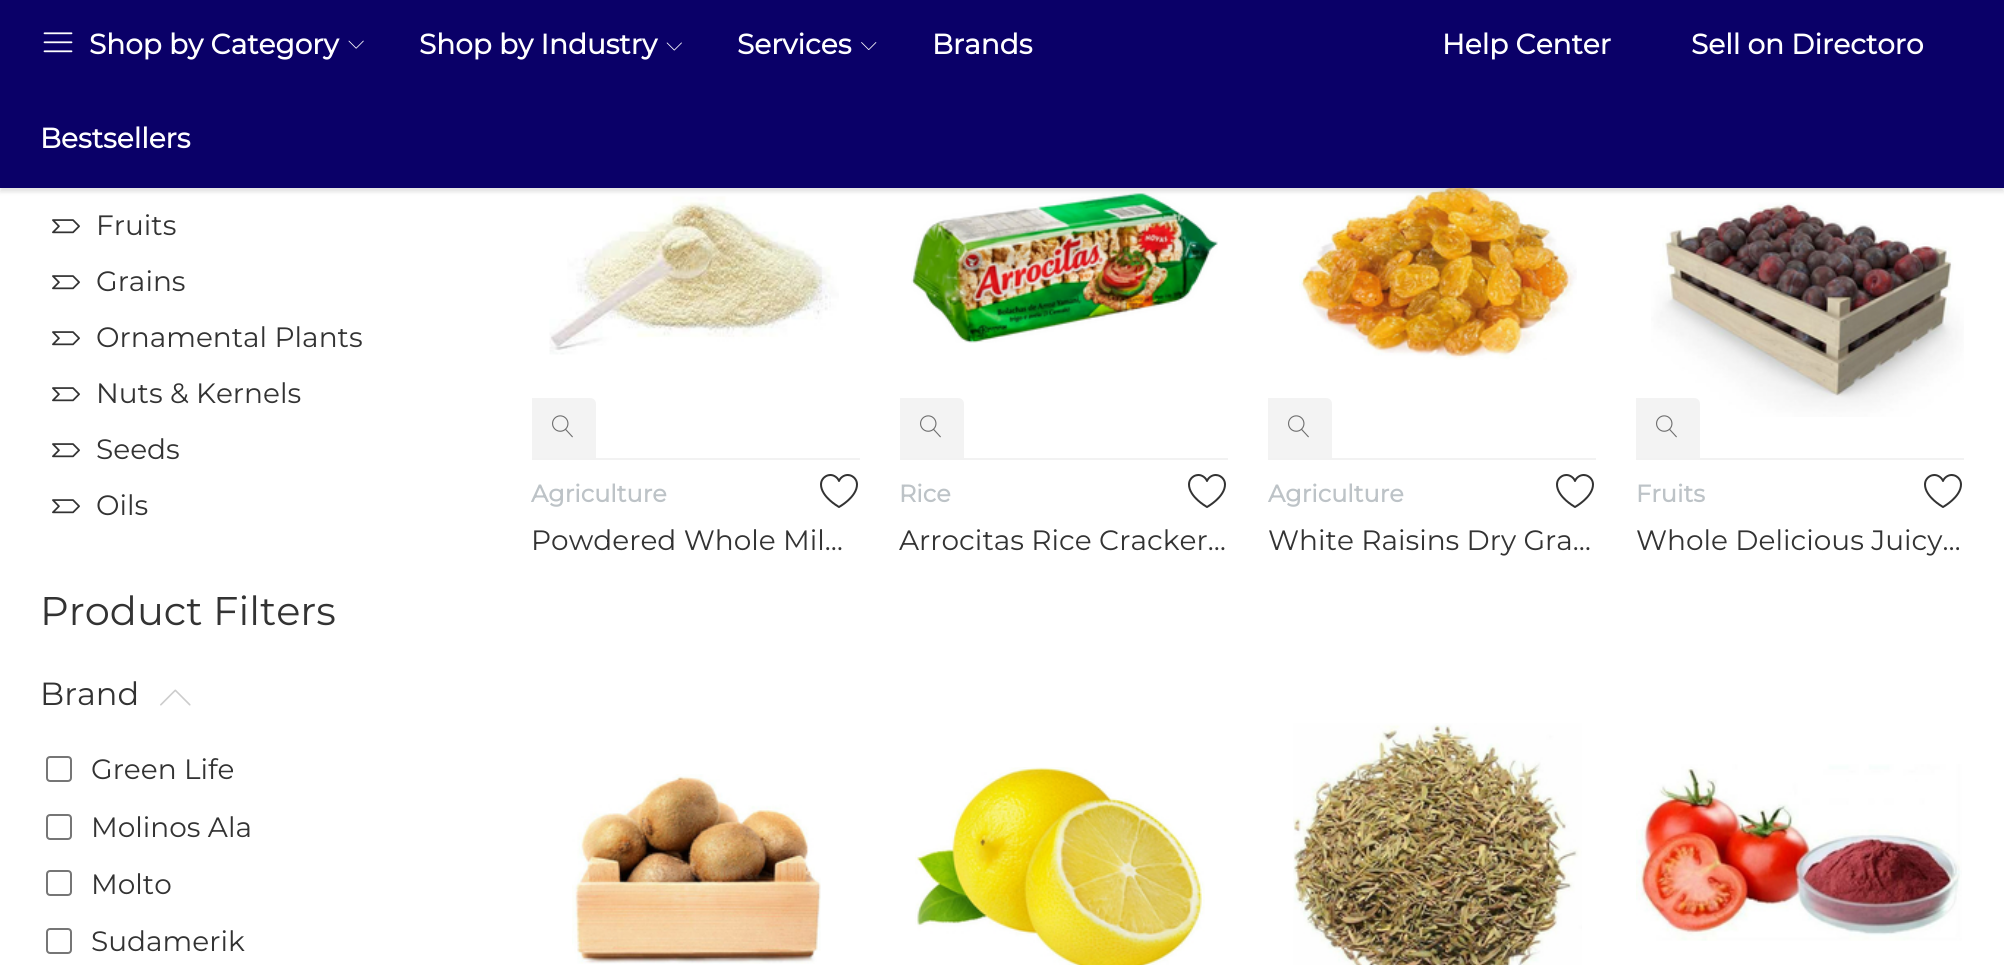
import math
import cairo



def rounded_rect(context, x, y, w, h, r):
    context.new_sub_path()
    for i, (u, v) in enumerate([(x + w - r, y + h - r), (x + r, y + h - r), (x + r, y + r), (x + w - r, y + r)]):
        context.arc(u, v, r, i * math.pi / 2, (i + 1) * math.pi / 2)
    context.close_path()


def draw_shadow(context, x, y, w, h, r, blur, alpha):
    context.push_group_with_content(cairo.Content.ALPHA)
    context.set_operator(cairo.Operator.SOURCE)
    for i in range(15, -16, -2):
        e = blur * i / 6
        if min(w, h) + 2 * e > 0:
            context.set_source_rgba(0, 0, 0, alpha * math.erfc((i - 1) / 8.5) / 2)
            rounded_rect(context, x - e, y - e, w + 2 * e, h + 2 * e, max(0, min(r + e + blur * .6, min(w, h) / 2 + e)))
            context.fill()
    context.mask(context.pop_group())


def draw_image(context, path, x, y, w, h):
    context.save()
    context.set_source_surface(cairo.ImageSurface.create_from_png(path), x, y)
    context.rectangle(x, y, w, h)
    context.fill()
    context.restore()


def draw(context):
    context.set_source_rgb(1, 1, 1)
    context.paint()
    draw_image(context, "images/7.png", 549, 196, 290, 159)
    draw_image(context, "images/10.png", 911, 193, 307, 150)
    draw_image(context, "images/11.png", 1299, 188, 278, 172)
    context.set_source_rgb(0, 0, 0)
    draw_shadow(context, 0, 4, 2004, 188, 0, 2, 0.11)
    context.set_source_rgb(10 / 255, 0, 104 / 255)
    context.rectangle(0, 0, 2004, 188)
    context.fill()
    draw_image(context, "images/1.png", 43, 32, 30, 21)
    draw_image(context, "images/2.png", 348, 40, 16, 9)
    draw_image(context, "images/3.png", 666, 42, 16, 9)
    draw_image(context, "images/4.png", 861, 42, 16, 8)
    draw_image(context, "images/5.png", 52, 219, 28, 15)
    draw_image(context, "images/5.png", 52, 275, 28, 15)
    draw_image(context, "images/5.png", 52, 331, 28, 15)
    draw_image(context, "images/5.png", 52, 387, 28, 15)
    draw_image(context, "images/5.png", 52, 443, 28, 15)
    draw_image(context, "images/5.png", 52, 499, 28, 15)
    draw_image(context, "images/6.png", 160, 689, 31, 17)
    rounded_rect(context, 47, 757, 24, 24, 3)
    context.set_source_rgb(118 / 255, 118 / 255, 118 / 255)
    context.stroke()
    rounded_rect(context, 47, 815, 24, 24, 3)
    context.stroke()
    rounded_rect(context, 47, 871, 24, 24, 3)
    context.stroke()
    rounded_rect(context, 47, 929, 24, 24, 3)
    context.stroke()
    context.set_source_rgb(242 / 255, 242 / 255, 242 / 255)
    context.rectangle(532, 458, 328, 2)
    context.fill()
    context.set_source_rgb(243 / 255, 243 / 255, 243 / 255)
    context.new_path()
    context.move_to(532, 398)
    context.line_to(590, 398)
    context.curve_to(593.5, 398, 596, 400.5, 596, 404)
    context.line_to(596, 458)
    context.line_to(532, 458)
    context.close_path()
    context.fill()
    draw_image(context, "images/8.png", 552, 415, 21, 23)
    draw_image(context, "images/9.png", 820, 474, 38, 34)
    context.set_source_rgb(242 / 255, 242 / 255, 242 / 255)
    context.rectangle(900, 458, 328, 2)
    context.fill()
    context.set_source_rgb(243 / 255, 243 / 255, 243 / 255)
    context.new_path()
    context.move_to(900, 398)
    context.line_to(958, 398)
    context.curve_to(961.5, 398, 964, 400.5, 964, 404)
    context.line_to(964, 458)
    context.line_to(900, 458)
    context.close_path()
    context.fill()
    draw_image(context, "images/8.png", 920, 415, 21, 23)
    draw_image(context, "images/9.png", 1188, 474, 38, 34)
    context.set_source_rgb(242 / 255, 242 / 255, 242 / 255)
    context.rectangle(1268, 458, 328, 2)
    context.fill()
    context.set_source_rgb(243 / 255, 243 / 255, 243 / 255)
    context.new_path()
    context.move_to(1268, 398)
    context.line_to(1326, 398)
    context.curve_to(1329.5, 398, 1332, 400.5, 1332, 404)
    context.line_to(1332, 458)
    context.line_to(1268, 458)
    context.close_path()
    context.fill()
    draw_image(context, "images/8.png", 1288, 415, 21, 23)
    draw_image(context, "images/9.png", 1556, 474, 38, 34)
    context.set_source_rgb(242 / 255, 242 / 255, 242 / 255)
    context.rectangle(1636, 458, 328, 2)
    context.fill()
    draw_image(context, "images/12.png", 1651, 202, 313, 215)
    context.set_source_rgb(243 / 255, 243 / 255, 243 / 255)
    context.new_path()
    context.move_to(1636, 398)
    context.line_to(1694, 398)
    context.curve_to(1697.5, 398, 1700, 400.5, 1700, 404)
    context.line_to(1700, 458)
    context.line_to(1636, 458)
    context.close_path()
    context.fill()
    draw_image(context, "images/8.png", 1656, 415, 21, 23)
    draw_image(context, "images/9.png", 1924, 474, 38, 34)
    draw_image(context, "images/13.png", 572, 774, 249, 190)
    draw_image(context, "images/14.png", 915, 767, 290, 198)
    draw_image(context, "images/15.png", 1293, 723, 289, 242)
    draw_image(context, "images/16.png", 1636, 764, 326, 177)
    context.select_font_face("Montserrat", cairo.FontSlant.NORMAL, cairo.FontWeight.BOLD)
    context.set_font_size(28)
    context.set_source_rgb(1, 1, 1)
    context.move_to(89, 54)
    context.show_text("Shop by Category")
    context.move_to(419, 54)
    context.show_text("Shop by Industry")
    context.move_to(737, 54)
    context.show_text("Services")
    context.move_to(932, 54)
    context.show_text("Brands")
    context.move_to(40, 148)
    context.show_text("Bestsellers")
    context.move_to(1442, 54)
    context.show_text("Help Center")
    context.move_to(1691, 54)
    context.show_text("Sell on Directoro")
    context.select_font_face("Montserrat Thin")
    context.set_source_rgb(51 / 255, 51 / 255, 51 / 255)
    context.move_to(96, 235)
    context.show_text("Fruits")
    context.move_to(96, 291)
    context.show_text("Grains")
    context.move_to(96, 347)
    context.show_text("Ornamental Plants")
    context.move_to(96, 403)
    context.show_text("Nuts & Kernels")
    context.move_to(96, 459)
    context.show_text("Seeds")
    context.move_to(96, 515)
    context.show_text("Oils")
    context.set_font_size(40)
    context.move_to(40, 625)
    context.show_text("Product Filters")
    context.set_font_size(32)
    context.move_to(40, 705)
    context.show_text("Brand")
    context.set_font_size(28)
    context.move_to(91, 779)
    context.show_text("Green Life")
    context.move_to(91, 837)
    context.show_text("Molinos Ala")
    context.move_to(91, 894)
    context.show_text("Molto")
    context.move_to(91, 951)
    context.show_text("Sudamerik")
    context.select_font_face("Montserrat", cairo.FontSlant.NORMAL, cairo.FontWeight.BOLD)
    context.set_font_size(24)
    context.set_source_rgb(189 / 255, 195 / 255, 199 / 255)
    context.move_to(531, 502)
    context.show_text("Agriculture")
    context.select_font_face("Montserrat Thin")
    context.set_font_size(28)
    context.set_source_rgb(51 / 255, 51 / 255, 51 / 255)
    context.move_to(531, 550)
    context.show_text("Powdered Whole Mil…")
    context.select_font_face("Montserrat", cairo.FontSlant.NORMAL, cairo.FontWeight.BOLD)
    context.set_font_size(24)
    context.set_source_rgb(189 / 255, 195 / 255, 199 / 255)
    context.move_to(899, 502)
    context.show_text("Rice")
    context.select_font_face("Montserrat Thin")
    context.set_font_size(28)
    context.set_source_rgb(51 / 255, 51 / 255, 51 / 255)
    context.move_to(899, 550)
    context.show_text("Arrocitas Rice Cracker…")
    context.select_font_face("Montserrat", cairo.FontSlant.NORMAL, cairo.FontWeight.BOLD)
    context.set_font_size(24)
    context.set_source_rgb(189 / 255, 195 / 255, 199 / 255)
    context.move_to(1268, 502)
    context.show_text("Agriculture")
    context.select_font_face("Montserrat Thin")
    context.set_font_size(28)
    context.set_source_rgb(51 / 255, 51 / 255, 51 / 255)
    context.move_to(1268, 550)
    context.show_text("White Raisins Dry Gra…")
    context.select_font_face("Montserrat", cairo.FontSlant.NORMAL, cairo.FontWeight.BOLD)
    context.set_font_size(24)
    context.set_source_rgb(189 / 255, 195 / 255, 199 / 255)
    context.move_to(1636, 502)
    context.show_text("Fruits")
    context.select_font_face("Montserrat Thin")
    context.set_font_size(28)
    context.set_source_rgb(51 / 255, 51 / 255, 51 / 255)
    context.move_to(1636, 550)
    context.show_text("Whole Delicious Juicy…")


surface = cairo.ImageSurface(cairo.Format.RGB24, 2004, 965)
context = cairo.Context(surface)
options = cairo.FontOptions()
options.set_hint_metrics(cairo.HintMetrics.OFF)
options.set_hint_style(cairo.HintStyle.NONE)
context.set_font_options(options)
context.set_miter_limit(4)
draw(context)
surface.write_to_png("out.png")
